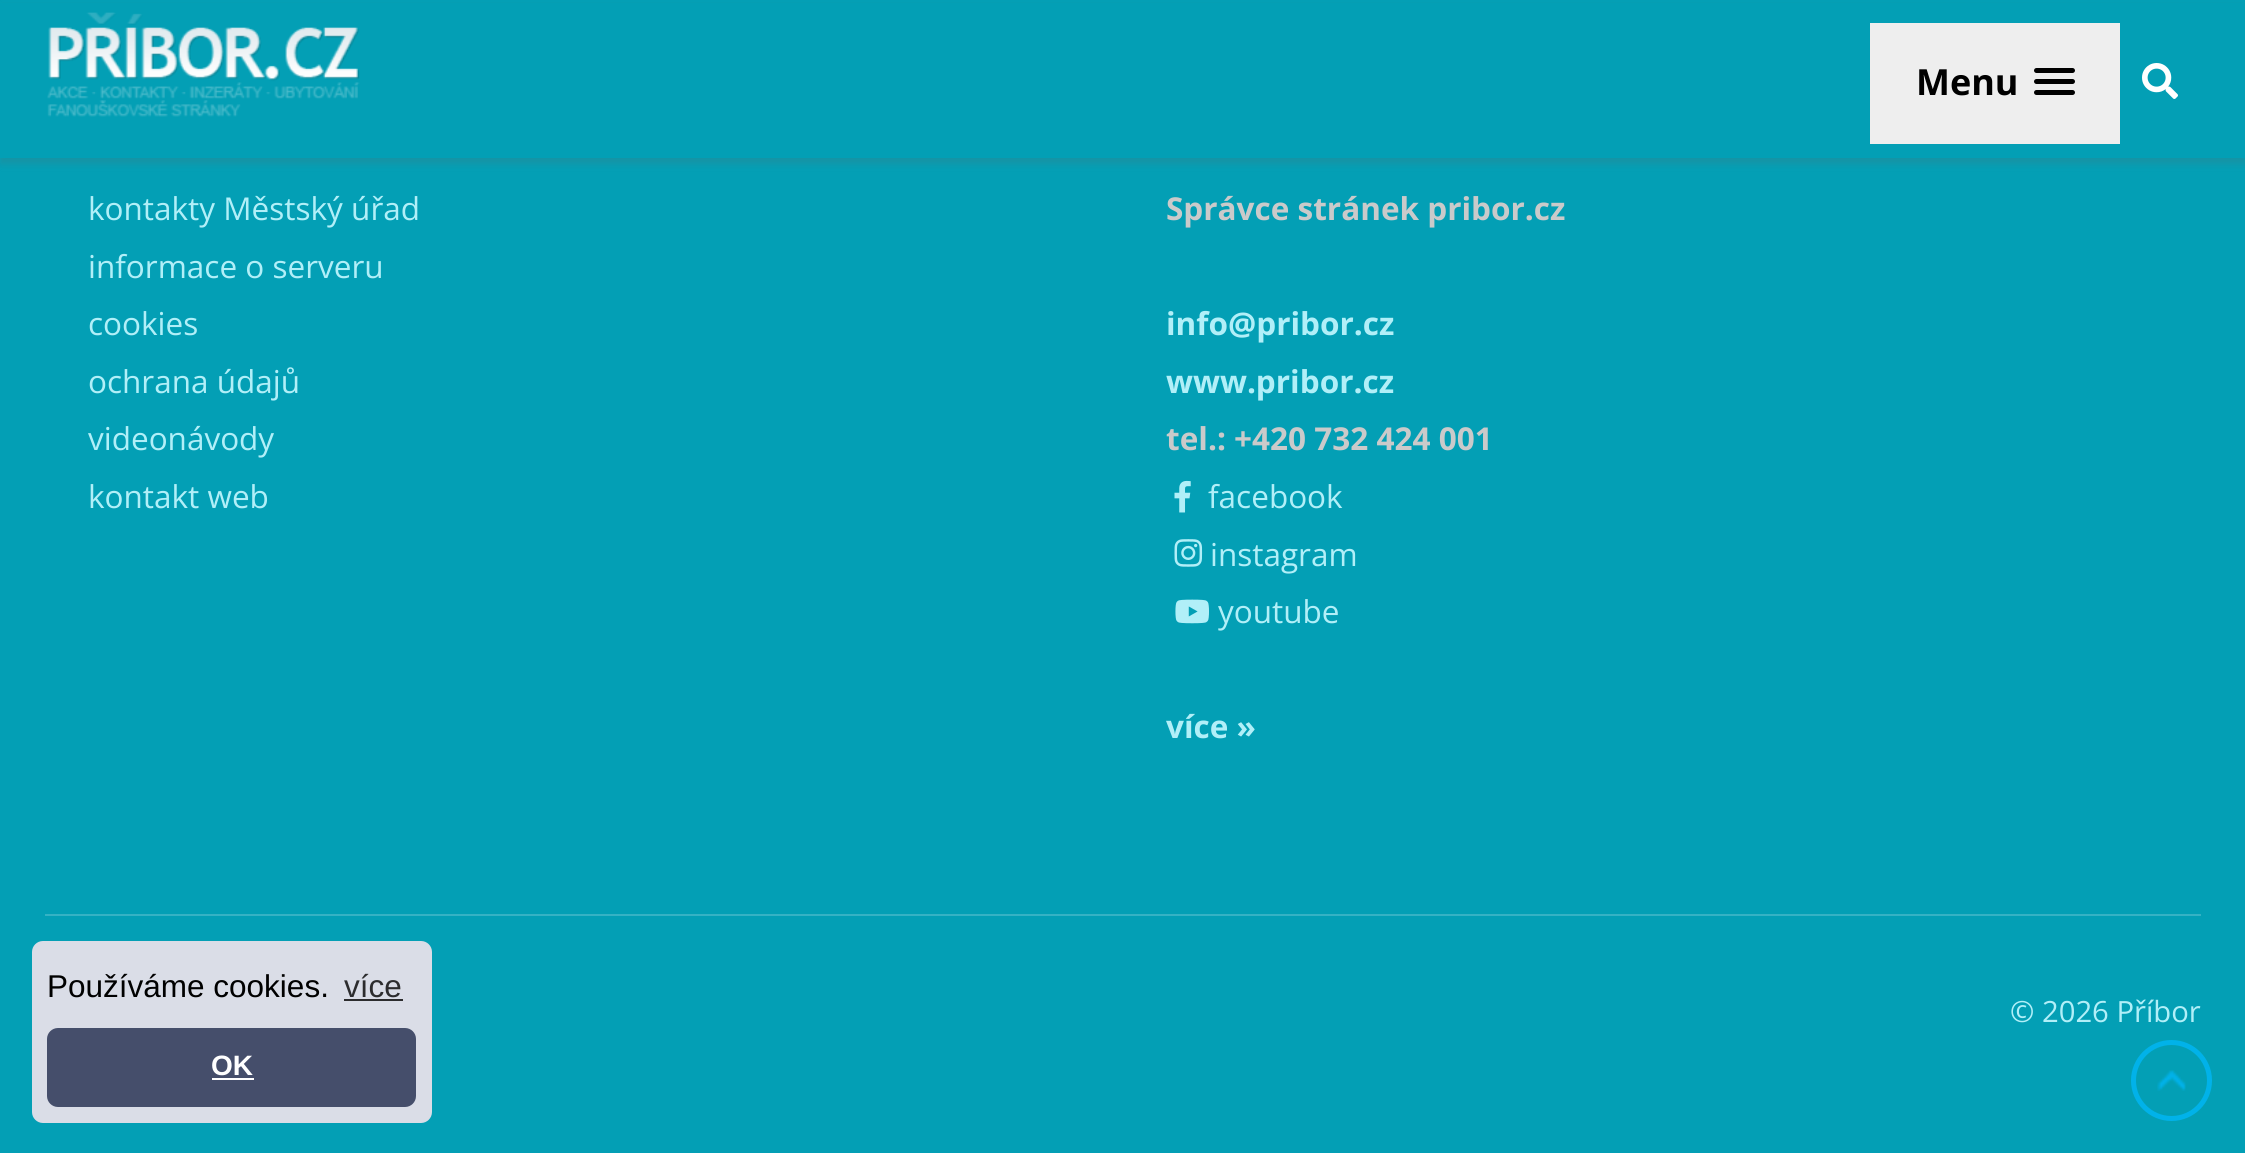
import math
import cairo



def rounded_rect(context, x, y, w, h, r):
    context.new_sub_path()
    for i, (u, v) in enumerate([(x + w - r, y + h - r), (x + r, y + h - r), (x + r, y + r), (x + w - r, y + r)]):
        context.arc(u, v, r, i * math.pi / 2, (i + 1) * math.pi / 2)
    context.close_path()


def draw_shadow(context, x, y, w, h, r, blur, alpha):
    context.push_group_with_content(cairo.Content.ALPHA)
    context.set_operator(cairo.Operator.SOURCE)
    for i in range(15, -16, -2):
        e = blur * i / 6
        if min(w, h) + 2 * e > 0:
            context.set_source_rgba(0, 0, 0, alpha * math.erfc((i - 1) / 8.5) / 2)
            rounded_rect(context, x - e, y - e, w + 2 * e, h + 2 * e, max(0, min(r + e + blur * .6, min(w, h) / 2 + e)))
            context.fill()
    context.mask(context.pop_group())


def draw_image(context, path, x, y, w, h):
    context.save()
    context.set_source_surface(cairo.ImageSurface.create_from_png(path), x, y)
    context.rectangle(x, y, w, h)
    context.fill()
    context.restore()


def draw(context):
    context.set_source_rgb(3 / 255, 159 / 255, 181 / 255)
    context.paint()
    context.set_source_rgb(100 / 255, 100 / 255, 100 / 255)
    draw_shadow(context, 0, 7, 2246, 157, 0, 3.5, 0.2)
    context.set_source_rgb(3 / 255, 159 / 255, 181 / 255)
    context.rectangle(0, 3, 2245, 155)
    context.fill()
    draw_image(context, "images/1.png", 47, 12, 313, 105)
    context.set_source_rgb(238 / 255, 238 / 255, 238 / 255)
    context.rectangle(1870, 23, 250, 121)
    context.fill()
    context.set_source_rgb(0, 0, 0)
    rounded_rect(context, 2034, 68, 41, 5, 2.5)
    context.fill()
    rounded_rect(context, 2034, 79, 41, 5, 2.5)
    context.fill()
    rounded_rect(context, 2034, 90, 41, 5, 2.5)
    context.fill()
    draw_image(context, "images/2.png", 2142, 63, 36, 36)
    draw_image(context, "images/3.png", 1174, 480, 17, 33)
    draw_image(context, "images/4.png", 1174, 539, 29, 28)
    draw_image(context, "images/5.png", 1175, 599, 34, 25)
    context.set_source_rgb(53 / 255, 178 / 255, 196 / 255)
    context.rectangle(45, 914, 2156, 2)
    context.fill()
    context.set_source_rgb(218 / 255, 221 / 255, 231 / 255)
    rounded_rect(context, 32, 941, 400, 182, 11)
    context.fill()
    context.set_source_rgb(44 / 255, 44 / 255, 46 / 255)
    context.rectangle(344, 999, 59, 2)
    context.fill()
    context.set_source_rgb(69 / 255, 78 / 255, 107 / 255)
    rounded_rect(context, 47, 1028, 369, 79, 11)
    context.fill()
    context.set_source_rgb(1, 1, 1)
    context.rectangle(212, 1078, 42, 2)
    context.fill()
    draw_image(context, "images/6.png", 2157, 1070, 29, 21)
    context.arc(2171.5, 1080.5, 38, 0, 2 * math.pi)
    context.set_source_rgb(1 / 255, 178 / 255, 233 / 255)
    context.set_line_width(5)
    context.stroke()
    context.select_font_face("Open Sans", cairo.FontSlant.NORMAL, cairo.FontWeight.BOLD)
    context.set_font_size(36)
    context.set_source_rgb(0, 0, 0)
    context.move_to(1916, 95)
    context.show_text("Menu")
    context.select_font_face("Open Sans")
    context.set_font_size(31.5)
    context.set_source_rgb(177 / 255, 239 / 255, 248 / 255)
    context.move_to(88, 220)
    context.show_text("kontakty Městský úřad")
    context.move_to(88, 278)
    context.show_text("informace o serveru")
    context.move_to(88, 335)
    context.show_text("cookies")
    context.move_to(88, 393)
    context.show_text("ochrana údajů")
    context.move_to(88, 450)
    context.show_text("videonávody")
    context.move_to(88, 508)
    context.show_text("kontakt web")
    context.select_font_face("Open Sans", cairo.FontSlant.NORMAL, cairo.FontWeight.BOLD)
    context.set_source_rgb(202 / 255, 202 / 255, 202 / 255)
    context.move_to(1166, 220)
    context.show_text("Správce stránek pribor.cz")
    context.set_source_rgb(177 / 255, 239 / 255, 248 / 255)
    context.move_to(1166, 335)
    context.show_text("info@pribor.cz")
    context.move_to(1166, 393)
    context.show_text("www.pribor.cz")
    context.set_source_rgb(202 / 255, 202 / 255, 202 / 255)
    context.move_to(1166, 450)
    context.show_text("tel.: +420 732 424 001")
    context.select_font_face("Open Sans")
    context.set_source_rgb(177 / 255, 239 / 255, 248 / 255)
    context.move_to(1208, 508)
    context.show_text("facebook")
    context.move_to(1210, 566)
    context.show_text("instagram")
    context.move_to(1218, 623)
    context.show_text("youtube")
    context.select_font_face("Open Sans", cairo.FontSlant.NORMAL, cairo.FontWeight.BOLD)
    context.move_to(1166, 738)
    context.show_text("více »")
    context.select_font_face("Open Sans")
    context.set_font_size(29.25)
    context.move_to(2010, 1022)
    context.show_text("© 2026 Příbor")
    context.select_font_face("Liberation Sans")
    context.set_font_size(31.5)
    context.set_source_rgb(0, 0, 0)
    context.move_to(47, 997)
    context.show_text("Používáme cookies.")
    context.set_source_rgb(44 / 255, 44 / 255, 46 / 255)
    context.move_to(344, 997)
    context.show_text("více")
    context.select_font_face("Liberation Sans", cairo.FontSlant.NORMAL, cairo.FontWeight.BOLD)
    context.set_font_size(28)
    context.set_source_rgb(1, 1, 1)
    context.move_to(211, 1075)
    context.show_text("OK")


surface = cairo.ImageSurface(cairo.Format.RGB24, 2245, 1153)
context = cairo.Context(surface)
options = cairo.FontOptions()
options.set_hint_metrics(cairo.HintMetrics.OFF)
options.set_hint_style(cairo.HintStyle.NONE)
context.set_font_options(options)
context.set_miter_limit(4)
draw(context)
surface.write_to_png("out.png")
